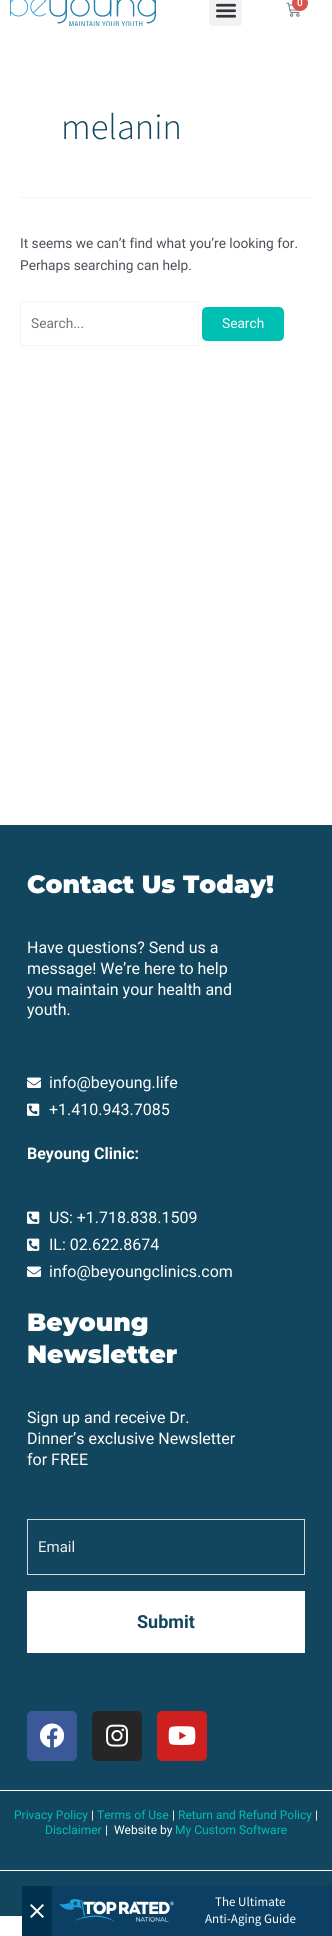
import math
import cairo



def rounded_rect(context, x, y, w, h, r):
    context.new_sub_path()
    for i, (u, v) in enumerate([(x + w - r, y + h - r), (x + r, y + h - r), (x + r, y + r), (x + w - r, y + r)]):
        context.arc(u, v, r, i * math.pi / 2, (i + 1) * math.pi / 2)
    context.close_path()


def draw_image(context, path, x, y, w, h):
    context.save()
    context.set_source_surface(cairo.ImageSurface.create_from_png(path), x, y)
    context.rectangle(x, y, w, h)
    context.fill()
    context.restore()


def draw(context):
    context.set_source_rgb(1, 1, 1)
    context.paint()
    draw_image(context, "images/1.png", 10, 0, 146, 26)
    context.set_source_rgb(242 / 255, 242 / 255, 242 / 255)
    rounded_rect(context, 209, -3, 33, 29, 3)
    context.fill()
    draw_image(context, "images/2.png", 215, 3, 22, 15)
    draw_image(context, "images/3.png", 286, 2, 14, 15)
    context.set_source_rgb(217 / 255, 83 / 255, 79 / 255)
    context.arc(300, 3, 8, 0, 2 * math.pi)
    context.fill()
    context.set_source_rgb(242 / 255, 245 / 255, 247 / 255)
    context.rectangle(20, 197, 292, 1)
    context.fill()
    context.rectangle(20.5, 301.5, 178, 44)
    context.set_line_width(1)
    context.stroke()
    context.set_source_rgb(0, 191 / 255, 179 / 255)
    rounded_rect(context, 202, 307, 82, 34, 5)
    context.fill()
    context.set_source_rgb(17 / 255, 70 / 255, 94 / 255)
    context.rectangle(0, 825, 332, 1091)
    context.fill()
    draw_image(context, "images/4.png", 27, 1077, 14, 11)
    draw_image(context, "images/5.png", 27, 1103, 13, 13)
    draw_image(context, "images/5.png", 27, 1211, 13, 13)
    draw_image(context, "images/5.png", 27, 1238, 13, 13)
    draw_image(context, "images/4.png", 27, 1266, 14, 11)
    context.rectangle(27.5, 1519.5, 277, 55)
    context.set_source_rgb(217 / 255, 217 / 255, 217 / 255)
    context.stroke()
    context.set_source_rgb(1, 1, 1)
    context.rectangle(27, 1591, 278, 62)
    context.fill()
    context.set_source_rgb(59 / 255, 89 / 255, 152 / 255)
    rounded_rect(context, 27, 1711, 50, 50, 5)
    context.fill()
    draw_image(context, "images/6.png", 39, 1723, 26, 25)
    context.set_source_rgb(38 / 255, 38 / 255, 38 / 255)
    rounded_rect(context, 92, 1711, 50, 50, 5)
    context.fill()
    draw_image(context, "images/7.png", 106, 1724, 22, 23)
    context.set_source_rgb(205 / 255, 32 / 255, 31 / 255)
    rounded_rect(context, 157, 1711, 50, 50, 5)
    context.fill()
    draw_image(context, "images/8.png", 168, 1726, 28, 19)
    context.set_source_rgb(1, 1, 1)
    context.rectangle(0, 1790, 332, 1)
    context.fill()
    context.rectangle(0, 1870, 332, 1)
    context.fill()
    context.set_source_rgb(11 / 255, 64 / 255, 100 / 255)
    context.rectangle(52, 1886, 280, 50)
    context.fill()
    context.set_source_rgb(0, 50 / 255, 80 / 255)
    context.rectangle(22, 1886, 30, 50)
    context.fill()
    draw_image(context, "images/9.png", 30, 1904, 14, 14)
    draw_image(context, "images/10.png", 59, 1899, 115, 24)
    context.select_font_face("Roboto SemiBold")
    context.set_font_size(10)
    context.set_source_rgb(1, 1, 1)
    context.move_to(297, 6)
    context.show_text("0")
    context.select_font_face("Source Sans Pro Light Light")
    context.set_font_size(36.5)
    context.set_source_rgb(17 / 255, 70 / 255, 94 / 255)
    context.move_to(61, 139)
    context.show_text("melanin")
    context.select_font_face("Roboto")
    context.set_font_size(13.7)
    context.set_source_rgb(75 / 255, 79 / 255, 88 / 255)
    context.move_to(20, 248)
    context.show_text("It seems we can’t find what you’re looking for.")
    context.move_to(20, 270)
    context.show_text("Perhaps searching can help.")
    context.set_source_rgb(117 / 255, 117 / 255, 117 / 255)
    context.move_to(31, 328)
    context.show_text("Search...")
    context.set_source_rgb(1, 1, 1)
    context.move_to(222, 328)
    context.show_text("Search")
    context.select_font_face("Montserrat Black")
    context.set_font_size(25)
    context.move_to(27, 893)
    context.show_text("Contact Us Today!")
    context.select_font_face("Roboto")
    context.set_font_size(16)
    context.move_to(27, 953)
    context.show_text("Have questions? Send us a")
    context.move_to(27, 974)
    context.show_text("message! We’re here to help")
    context.move_to(27, 995)
    context.show_text("you maintain your health and")
    context.move_to(27, 1015)
    context.show_text("youth.")
    context.move_to(49, 1088)
    context.show_text("info@beyoung.life")
    context.move_to(49, 1115)
    context.show_text("+1.410.943.7085")
    context.select_font_face("Roboto", cairo.FontSlant.NORMAL, cairo.FontWeight.BOLD)
    context.move_to(27, 1159)
    context.show_text("Beyoung Clinic:")
    context.select_font_face("Roboto")
    context.move_to(49, 1223)
    context.show_text("US: +1.718.838.1509")
    context.move_to(49, 1250)
    context.show_text("IL: 02.622.8674")
    context.move_to(49, 1277)
    context.show_text("info@beyoungclinics.com")
    context.select_font_face("Montserrat Black")
    context.set_font_size(25)
    context.move_to(27, 1331)
    context.show_text("Beyoung")
    context.move_to(27, 1363)
    context.show_text("Newsletter")
    context.select_font_face("Roboto")
    context.set_font_size(16)
    context.move_to(27, 1423)
    context.show_text("Sign up and receive Dr.")
    context.move_to(27, 1444)
    context.show_text("Dinner’s exclusive Newsletter")
    context.move_to(27, 1465)
    context.show_text("for FREE")
    context.set_font_size(15)
    context.set_source_rgb(239 / 255, 239 / 255, 239 / 255)
    context.move_to(38, 1552)
    context.show_text("Email")
    context.select_font_face("Roboto", cairo.FontSlant.NORMAL, cairo.FontWeight.BOLD)
    context.set_font_size(18)
    context.set_source_rgb(17 / 255, 70 / 255, 94 / 255)
    context.move_to(137, 1628)
    context.show_text("Submit")
    context.select_font_face("Roboto")
    context.set_font_size(12)
    context.set_source_rgb(0, 191 / 255, 179 / 255)
    context.move_to(14, 1819)
    context.show_text("Privacy Policy")
    context.set_source_rgb(1, 1, 1)
    context.move_to(91, 1819)
    context.show_text("|")
    context.set_source_rgb(0, 191 / 255, 179 / 255)
    context.move_to(97, 1819)
    context.show_text("Terms of Use")
    context.set_source_rgb(1, 1, 1)
    context.move_to(172, 1819)
    context.show_text("|")
    context.set_source_rgb(0, 191 / 255, 179 / 255)
    context.move_to(178, 1819)
    context.show_text("Return and Refund Policy")
    context.set_source_rgb(1, 1, 1)
    context.move_to(315, 1819)
    context.show_text("|")
    context.set_source_rgb(0, 191 / 255, 179 / 255)
    context.move_to(45, 1834)
    context.show_text("Disclaimer")
    context.set_source_rgb(1, 1, 1)
    context.move_to(105, 1834)
    context.show_text("|  Website by")
    context.set_source_rgb(0, 191 / 255, 179 / 255)
    context.move_to(175, 1834)
    context.show_text("My Custom Software")
    context.select_font_face("Source Sans Pro")
    context.set_font_size(13)
    context.set_source_rgb(1, 1, 1)
    context.move_to(215, 1906)
    context.show_text("The Ultimate")
    context.move_to(205, 1923)
    context.show_text("Anti-Aging Guide")


surface = cairo.ImageSurface(cairo.Format.RGB24, 332, 1936)
context = cairo.Context(surface)
options = cairo.FontOptions()
options.set_hint_metrics(cairo.HintMetrics.OFF)
options.set_hint_style(cairo.HintStyle.NONE)
context.set_font_options(options)
context.set_miter_limit(4)
draw(context)
surface.write_to_png("out.png")
